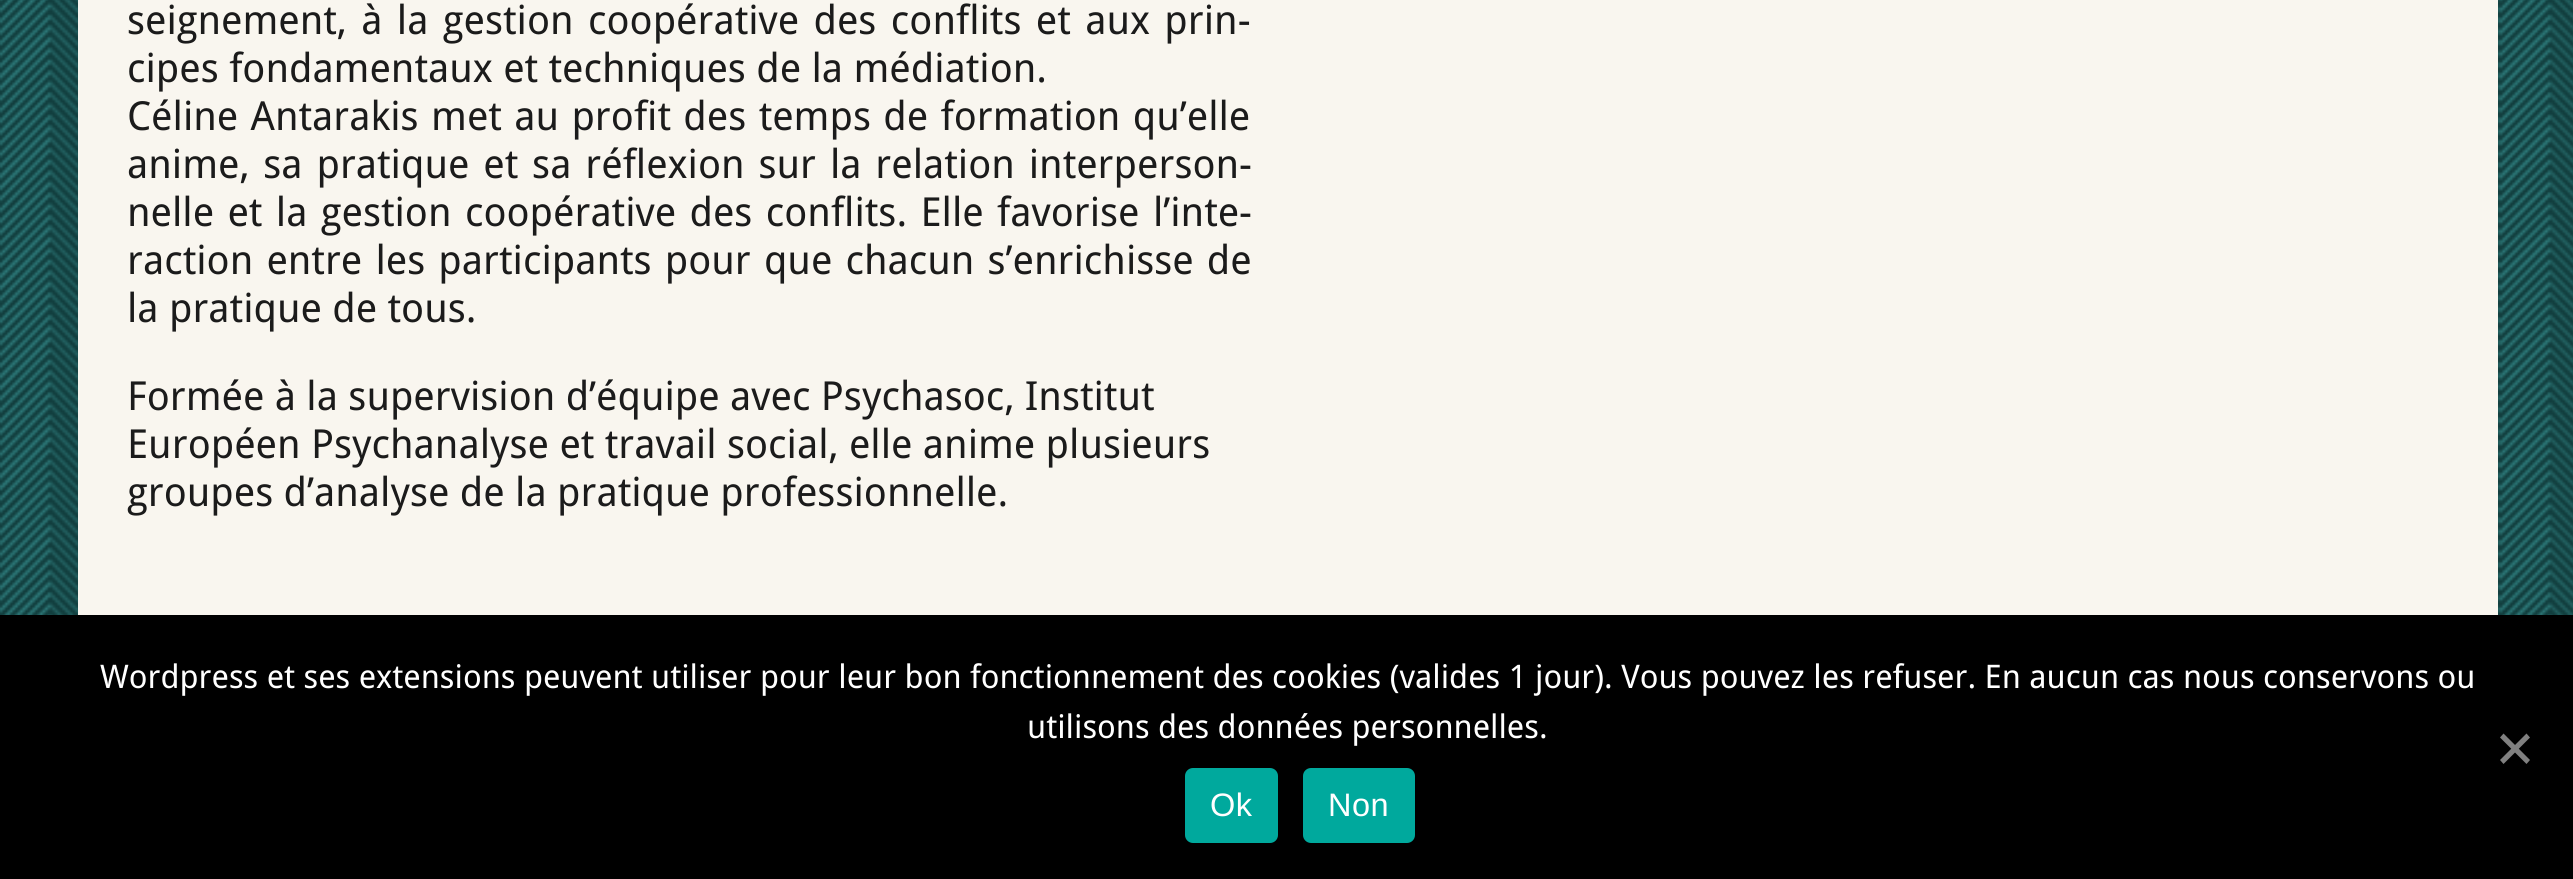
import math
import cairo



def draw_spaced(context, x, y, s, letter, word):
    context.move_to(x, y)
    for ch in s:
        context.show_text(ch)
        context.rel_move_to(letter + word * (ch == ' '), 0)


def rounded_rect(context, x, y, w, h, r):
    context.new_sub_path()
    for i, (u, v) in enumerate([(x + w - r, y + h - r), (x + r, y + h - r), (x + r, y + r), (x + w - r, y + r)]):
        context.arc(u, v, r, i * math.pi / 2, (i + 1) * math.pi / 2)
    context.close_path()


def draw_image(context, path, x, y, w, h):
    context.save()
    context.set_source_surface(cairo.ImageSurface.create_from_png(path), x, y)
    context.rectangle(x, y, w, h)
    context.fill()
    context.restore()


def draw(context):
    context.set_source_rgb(1, 1, 1)
    context.paint()
    draw_image(context, "images/1.png", 0, 0, 2573, 615)
    context.set_source_rgb(249 / 255, 246 / 255, 239 / 255)
    context.rectangle(78, 0, 2420, 615)
    context.fill()
    context.set_source_rgb(0, 0, 0)
    context.rectangle(0, 615, 2573, 264)
    context.fill()
    context.set_source_rgb(128 / 255, 128 / 255, 128 / 255)
    context.new_path()
    context.move_to(2526.5, 733.5)
    context.line_to(2530, 737.5)
    context.line_to(2503.5, 764)
    context.line_to(2500, 760)
    context.close_path()
    context.fill()
    context.new_path()
    context.move_to(2500, 737.5)
    context.line_to(2503.5, 733.5)
    context.line_to(2530, 760)
    context.line_to(2526.5, 764)
    context.close_path()
    context.fill()
    context.set_source_rgb(0, 169 / 255, 157 / 255)
    rounded_rect(context, 1185, 768, 93, 75, 8)
    context.fill()
    rounded_rect(context, 1303, 768, 112, 75, 8)
    context.fill()
    context.select_font_face("Droid Sans")
    context.set_font_size(40)
    context.set_source_rgb(27 / 255, 27 / 255, 27 / 255)
    draw_spaced(context, 127, 34, "seignement, à la gestion coopérative des conflits et aux prin-", 0, 4)
    context.move_to(127, 82)
    context.show_text("cipes fondamentaux et techniques de la médiation.")
    draw_spaced(context, 127, 130, "Céline Antarakis met au profit des temps de formation qu’elle", 0, 2)
    draw_spaced(context, 127, 178, "anime, sa pratique et sa réflexion sur la relation interperson-", 0, 3.5)
    draw_spaced(context, 127, 226, "nelle et la gestion coopérative des conflits. Elle favorise l’inte-", 0, 3)
    draw_spaced(context, 127, 274, "raction entre les participants pour que chacun s’enrichisse de", 0, 2.75)
    context.move_to(127, 322)
    context.show_text("la pratique de tous.")
    context.move_to(127, 410)
    context.show_text("Formée à la supervision d’équipe avec Psychasoc, Institut")
    context.move_to(127, 458)
    context.show_text("Européen Psychanalyse et travail social, elle anime plusieurs")
    context.move_to(127, 506)
    context.show_text("groupes d’analyse de la pratique professionnelle.")
    context.set_font_size(32.5)
    context.set_source_rgb(1, 1, 1)
    context.move_to(100, 688)
    context.show_text("Wordpress et ses extensions peuvent utiliser pour leur bon fonctionnement des cookies (valides 1 jour). Vous pouvez les refuser. En aucun cas nous conservons ou")
    context.move_to(1027, 738)
    context.show_text("utilisons des données personnelles.")
    context.select_font_face("Liberation Sans")
    draw_spaced(context, 1210, 816, "Ok", 0.5, 0)
    draw_spaced(context, 1328, 816, "Non", 0.5, 0)


surface = cairo.ImageSurface(cairo.Format.RGB24, 2573, 879)
context = cairo.Context(surface)
options = cairo.FontOptions()
options.set_hint_metrics(cairo.HintMetrics.OFF)
options.set_hint_style(cairo.HintStyle.NONE)
context.set_font_options(options)
context.set_miter_limit(4)
draw(context)
surface.write_to_png("out.png")
